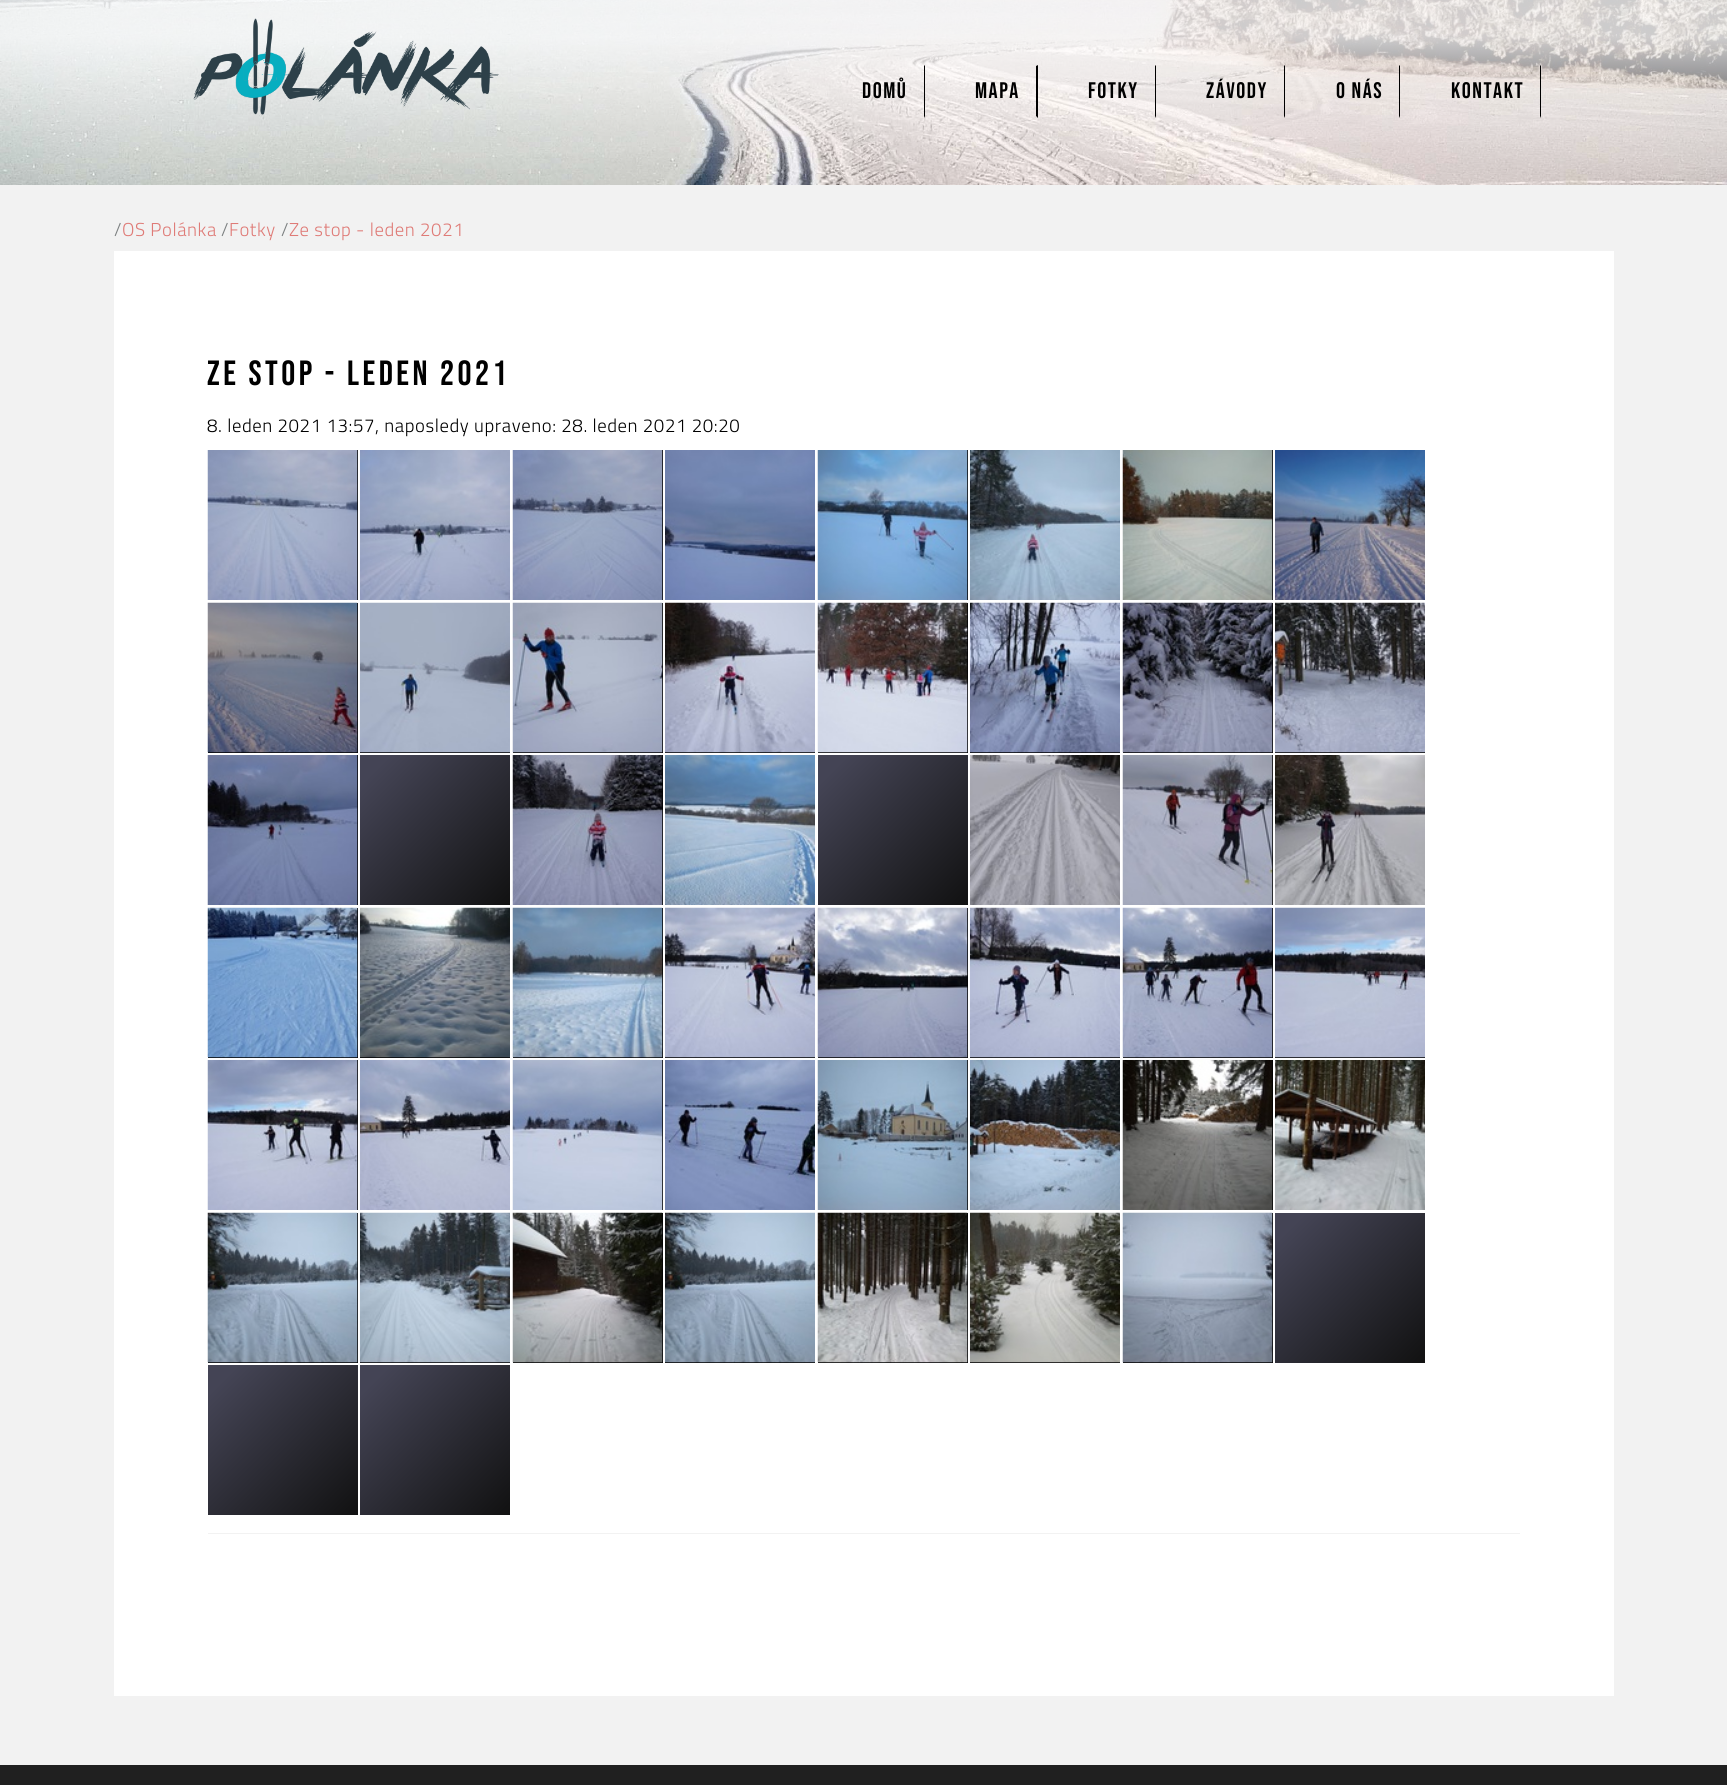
import math
import cairo



def draw_spaced(context, x, y, s, letter, word):
    context.move_to(x, y)
    for ch in s:
        context.show_text(ch)
        context.rel_move_to(letter + word * (ch == ' '), 0)


def draw_image(context, path, x, y, w, h):
    context.save()
    context.set_source_surface(cairo.ImageSurface.create_from_png(path), x, y)
    context.rectangle(x, y, w, h)
    context.fill()
    context.restore()


def draw(context):
    context.set_source_rgb(1, 1, 1)
    context.paint()
    draw_image(context, "images/1.png", 0, 0, 1727, 185)
    draw_image(context, "images/2.png", 193, 18, 306, 97)
    context.set_source_rgb(0, 0, 0)
    context.new_path()
    context.move_to(925, 65)
    context.line_to(925, 118)
    context.line_to(924, 116)
    context.line_to(924, 66)
    context.close_path()
    context.fill()
    context.new_path()
    context.move_to(1038, 65)
    context.line_to(1038, 118)
    context.line_to(1036, 116)
    context.line_to(1036, 66)
    context.close_path()
    context.fill()
    context.new_path()
    context.move_to(1156, 65)
    context.line_to(1156, 118)
    context.line_to(1155, 116)
    context.line_to(1155, 66)
    context.close_path()
    context.fill()
    context.new_path()
    context.move_to(1285, 65)
    context.line_to(1285, 118)
    context.line_to(1284, 116)
    context.line_to(1284, 66)
    context.close_path()
    context.fill()
    context.new_path()
    context.move_to(1400, 65)
    context.line_to(1400, 118)
    context.line_to(1399, 116)
    context.line_to(1399, 66)
    context.close_path()
    context.fill()
    context.new_path()
    context.move_to(1541, 65)
    context.line_to(1541, 118)
    context.line_to(1540, 116)
    context.line_to(1540, 66)
    context.close_path()
    context.fill()
    context.set_source_rgb(242 / 255, 242 / 255, 242 / 255)
    context.rectangle(0, 185, 1727, 1580)
    context.fill()
    context.set_source_rgb(1, 1, 1)
    context.rectangle(114, 251, 1500, 1445)
    context.fill()
    context.set_source_rgb(242 / 255, 242 / 255, 242 / 255)
    context.rectangle(208, 1533, 1312, 1)
    context.fill()
    context.set_source_rgb(0, 0, 0)
    context.rectangle(357, 450, 1, 150)
    context.fill()
    draw_image(context, "images/3.png", 207, 450, 151, 150)
    draw_image(context, "images/4.png", 360, 450, 150, 150)
    context.rectangle(662, 450, 1, 150)
    context.fill()
    draw_image(context, "images/5.png", 512, 450, 151, 150)
    draw_image(context, "images/6.png", 665, 450, 150, 150)
    context.rectangle(967, 450, 1, 150)
    context.fill()
    draw_image(context, "images/7.png", 817, 450, 151, 150)
    draw_image(context, "images/8.png", 970, 450, 150, 150)
    context.rectangle(1272, 450, 1, 150)
    context.fill()
    draw_image(context, "images/9.png", 1122, 450, 151, 150)
    draw_image(context, "images/10.png", 1275, 450, 150, 150)
    context.rectangle(208, 603, 150, 150)
    context.fill()
    draw_image(context, "images/11.png", 207, 602, 151, 151)
    context.rectangle(360, 752, 150, 1)
    context.fill()
    draw_image(context, "images/12.png", 360, 602, 150, 151)
    context.rectangle(513, 603, 150, 150)
    context.fill()
    draw_image(context, "images/13.png", 512, 602, 151, 151)
    context.rectangle(665, 752, 150, 1)
    context.fill()
    draw_image(context, "images/14.png", 665, 602, 150, 151)
    context.rectangle(818, 603, 150, 150)
    context.fill()
    draw_image(context, "images/15.png", 817, 602, 151, 151)
    context.rectangle(970, 752, 150, 1)
    context.fill()
    draw_image(context, "images/16.png", 970, 602, 150, 151)
    context.rectangle(1123, 603, 150, 150)
    context.fill()
    draw_image(context, "images/17.png", 1122, 602, 151, 151)
    context.rectangle(1275, 752, 150, 1)
    context.fill()
    draw_image(context, "images/18.png", 1275, 602, 150, 151)
    context.rectangle(357, 755, 1, 150)
    context.fill()
    draw_image(context, "images/19.png", 207, 755, 151, 150)
    gradient = cairo.LinearGradient(510, 905, 360, 755)
    gradient.add_color_stop_rgba(0, 17 / 255, 17 / 255, 17 / 255, 1)
    gradient.add_color_stop_rgba(0.9, 68 / 255, 68 / 255, 85 / 255, 1)
    context.set_source(gradient)
    context.rectangle(360, 755, 150, 150)
    context.fill()
    context.set_source_rgb(0, 0, 0)
    context.rectangle(662, 755, 1, 150)
    context.fill()
    draw_image(context, "images/20.png", 512, 755, 151, 150)
    draw_image(context, "images/21.png", 665, 755, 150, 150)
    gradient = cairo.LinearGradient(968, 905, 818, 755)
    gradient.add_color_stop_rgba(0, 17 / 255, 17 / 255, 17 / 255, 1)
    gradient.add_color_stop_rgba(0.9, 68 / 255, 68 / 255, 85 / 255, 1)
    context.set_source(gradient)
    context.rectangle(818, 755, 150, 150)
    context.fill()
    draw_image(context, "images/22.png", 970, 755, 150, 150)
    context.set_source_rgb(0, 0, 0)
    context.rectangle(1272, 755, 1, 150)
    context.fill()
    draw_image(context, "images/23.png", 1122, 755, 151, 150)
    draw_image(context, "images/24.png", 1275, 755, 150, 150)
    context.rectangle(208, 908, 150, 150)
    context.fill()
    draw_image(context, "images/25.png", 207, 907, 151, 151)
    context.rectangle(360, 1057, 150, 1)
    context.fill()
    draw_image(context, "images/26.png", 360, 907, 150, 151)
    context.rectangle(513, 908, 150, 150)
    context.fill()
    draw_image(context, "images/27.png", 512, 907, 151, 151)
    context.rectangle(665, 1057, 150, 1)
    context.fill()
    draw_image(context, "images/28.png", 665, 907, 150, 151)
    context.rectangle(818, 908, 150, 150)
    context.fill()
    draw_image(context, "images/29.png", 817, 907, 151, 151)
    context.rectangle(970, 1057, 150, 1)
    context.fill()
    draw_image(context, "images/30.png", 970, 907, 150, 151)
    context.rectangle(1123, 908, 150, 150)
    context.fill()
    draw_image(context, "images/31.png", 1122, 907, 151, 151)
    context.rectangle(1275, 1057, 150, 1)
    context.fill()
    draw_image(context, "images/32.png", 1275, 907, 150, 151)
    context.rectangle(357, 1060, 1, 150)
    context.fill()
    draw_image(context, "images/33.png", 207, 1060, 151, 150)
    draw_image(context, "images/34.png", 360, 1060, 150, 150)
    context.rectangle(662, 1060, 1, 150)
    context.fill()
    draw_image(context, "images/35.png", 512, 1060, 151, 150)
    draw_image(context, "images/36.png", 665, 1060, 150, 150)
    context.rectangle(967, 1060, 1, 150)
    context.fill()
    draw_image(context, "images/37.png", 817, 1060, 151, 150)
    draw_image(context, "images/38.png", 970, 1060, 150, 150)
    context.rectangle(1272, 1060, 1, 150)
    context.fill()
    draw_image(context, "images/39.png", 1122, 1060, 151, 150)
    draw_image(context, "images/40.png", 1275, 1060, 150, 150)
    context.rectangle(208, 1213, 150, 150)
    context.fill()
    draw_image(context, "images/41.png", 207, 1212, 151, 151)
    context.rectangle(360, 1362, 150, 1)
    context.fill()
    draw_image(context, "images/42.png", 360, 1212, 150, 151)
    context.rectangle(513, 1213, 150, 150)
    context.fill()
    draw_image(context, "images/43.png", 512, 1212, 151, 151)
    context.rectangle(665, 1362, 150, 1)
    context.fill()
    draw_image(context, "images/44.png", 665, 1212, 150, 151)
    context.rectangle(818, 1213, 150, 150)
    context.fill()
    draw_image(context, "images/45.png", 817, 1212, 151, 151)
    context.rectangle(970, 1362, 150, 1)
    context.fill()
    draw_image(context, "images/46.png", 970, 1212, 150, 151)
    context.rectangle(1123, 1213, 150, 150)
    context.fill()
    draw_image(context, "images/47.png", 1122, 1212, 151, 151)
    gradient = cairo.LinearGradient(1425, 1363, 1275, 1213)
    gradient.add_color_stop_rgba(0, 17 / 255, 17 / 255, 17 / 255, 1)
    gradient.add_color_stop_rgba(0.9, 68 / 255, 68 / 255, 85 / 255, 1)
    context.set_source(gradient)
    context.rectangle(1275, 1213, 150, 150)
    context.fill()
    gradient = cairo.LinearGradient(358, 1515, 208, 1365)
    gradient.add_color_stop_rgba(0, 17 / 255, 17 / 255, 17 / 255, 1)
    gradient.add_color_stop_rgba(0.9, 68 / 255, 68 / 255, 85 / 255, 1)
    context.set_source(gradient)
    context.rectangle(208, 1365, 150, 150)
    context.fill()
    gradient = cairo.LinearGradient(510, 1515, 360, 1365)
    gradient.add_color_stop_rgba(0, 17 / 255, 17 / 255, 17 / 255, 1)
    gradient.add_color_stop_rgba(0.9, 68 / 255, 68 / 255, 85 / 255, 1)
    context.set_source(gradient)
    context.rectangle(360, 1365, 150, 150)
    context.fill()
    context.set_source_rgb(32 / 255, 32 / 255, 32 / 255)
    context.rectangle(0, 1765, 1727, 20)
    context.fill()
    context.select_font_face("Bebas Neue")
    context.set_font_size(22.5)
    context.set_source_rgb(0, 0, 0)
    draw_spaced(context, 862, 98, "DOMŮ", 1.5, 0)
    draw_spaced(context, 975, 98, "MAPA", 1.5, 0)
    draw_spaced(context, 1088, 98, "FOTKY", 1.5, 0)
    draw_spaced(context, 1206, 98, "ZÁVODY", 1.5, 0)
    draw_spaced(context, 1336, 98, "O NÁS", 1.5, 0)
    draw_spaced(context, 1451, 98, "KONTAKT", 1.5, 0)
    context.select_font_face("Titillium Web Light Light")
    context.set_font_size(18.7)
    context.set_source_rgb(124 / 255, 128 / 255, 129 / 255)
    draw_spaced(context, 114, 236, "/", 0.58, 0)
    context.set_source_rgb(223 / 255, 123 / 255, 119 / 255)
    draw_spaced(context, 122, 236, "OS Polánka", 0.58, 0)
    context.set_source_rgb(124 / 255, 128 / 255, 129 / 255)
    draw_spaced(context, 221, 236, "/", 0.58, 0)
    context.set_source_rgb(223 / 255, 123 / 255, 119 / 255)
    draw_spaced(context, 229, 236, "Fotky", 0.58, 0)
    context.set_source_rgb(124 / 255, 128 / 255, 129 / 255)
    draw_spaced(context, 281, 236, "/", 0.58, 0)
    context.set_source_rgb(223 / 255, 123 / 255, 119 / 255)
    draw_spaced(context, 289, 236, "Ze stop - leden 2021", 0.58, 0)
    context.select_font_face("Bebas Neue")
    context.set_font_size(35)
    context.set_source_rgb(0, 0, 0)
    draw_spaced(context, 207, 385, "ZE STOP - LEDEN 2021", 3.5, 0)
    context.select_font_face("Titillium Web Light Light")
    context.set_font_size(18.7)
    draw_spaced(context, 207, 432, "8. leden 2021 13:57, naposledy upraveno: 28. leden 2021 20:20", 0.58, 0)


surface = cairo.ImageSurface(cairo.Format.RGB24, 1727, 1785)
context = cairo.Context(surface)
options = cairo.FontOptions()
options.set_hint_metrics(cairo.HintMetrics.OFF)
options.set_hint_style(cairo.HintStyle.NONE)
context.set_font_options(options)
context.set_miter_limit(4)
draw(context)
surface.write_to_png("out.png")
